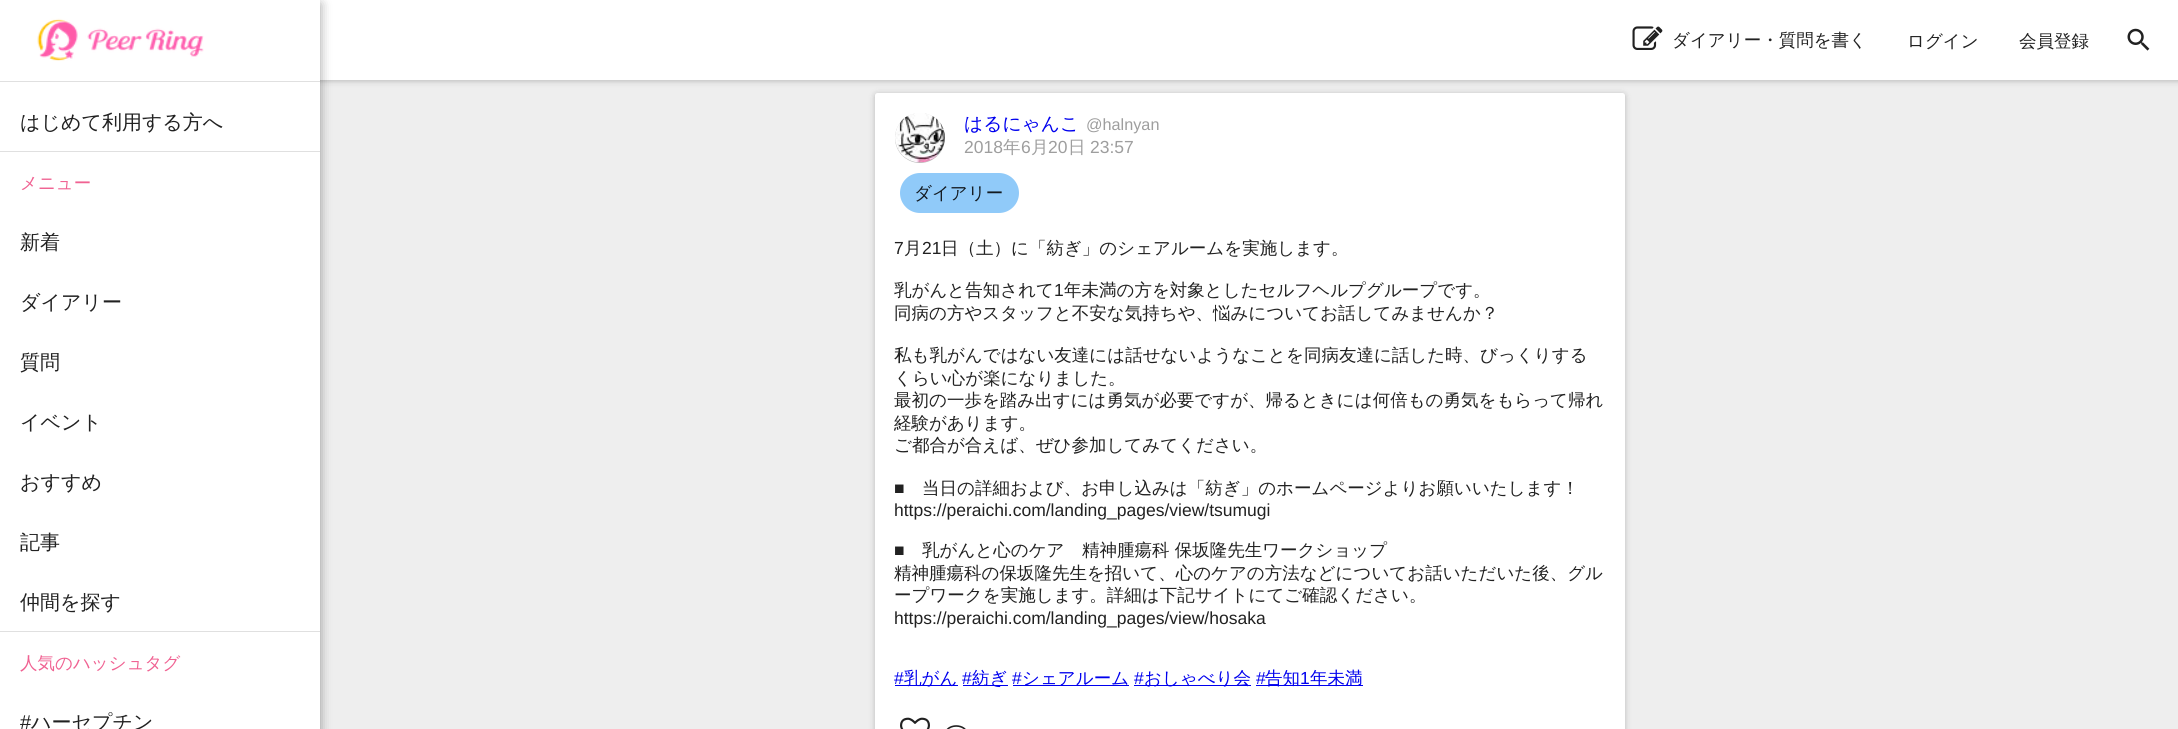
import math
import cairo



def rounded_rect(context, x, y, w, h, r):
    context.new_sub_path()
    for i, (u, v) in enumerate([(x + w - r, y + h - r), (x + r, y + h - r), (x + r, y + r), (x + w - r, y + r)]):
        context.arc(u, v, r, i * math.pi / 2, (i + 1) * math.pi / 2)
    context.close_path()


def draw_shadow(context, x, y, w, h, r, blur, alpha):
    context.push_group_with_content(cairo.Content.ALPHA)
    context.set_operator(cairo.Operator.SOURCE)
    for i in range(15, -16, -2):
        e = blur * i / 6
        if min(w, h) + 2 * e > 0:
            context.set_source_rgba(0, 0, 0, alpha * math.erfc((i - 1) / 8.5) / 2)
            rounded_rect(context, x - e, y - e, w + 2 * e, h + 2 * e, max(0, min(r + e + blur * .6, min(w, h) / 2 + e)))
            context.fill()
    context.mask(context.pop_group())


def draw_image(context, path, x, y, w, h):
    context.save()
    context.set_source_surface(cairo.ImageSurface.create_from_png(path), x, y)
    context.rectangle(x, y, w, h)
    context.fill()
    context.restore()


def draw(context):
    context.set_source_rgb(238 / 255, 238 / 255, 238 / 255)
    context.paint()
    context.set_source_rgb(0, 0, 0)
    draw_shadow(context, 0, 1, 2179, 80, 0, 2.5, 0.12)
    draw_shadow(context, 875, 94, 750, 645, 2.5, 2.5, 0.12)
    draw_shadow(context, 875, 94, 750, 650, 2.5, 4, 0.12)
    context.set_source_rgb(1, 1, 1)
    rounded_rect(context, 875, 93, 750, 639, 2.5)
    context.fill()
    context.set_source_rgb(0, 0, 0)
    draw_shadow(context, 0, 1, 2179, 80, 0, 4, 0.12)
    context.set_source_rgb(1, 1, 1)
    context.rectangle(320, 0, 1858, 80)
    context.fill()
    draw_image(context, "images/1.png", 1632, 26, 31, 24)
    draw_image(context, "images/2.png", 2127, 28, 23, 23)
    context.set_source_rgb(0, 0, 0)
    draw_shadow(context, 0, 4, 320, 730, 0, 6, 0.23)
    draw_shadow(context, 0, 4, 320, 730, 0, 6, 0.16)
    context.set_source_rgb(1, 1, 1)
    context.rectangle(0, 0, 320, 729)
    context.fill()
    draw_image(context, "images/3.png", 37, 18, 167, 43)
    context.set_source_rgb(224 / 255, 224 / 255, 224 / 255)
    context.rectangle(0, 81, 320, 1)
    context.fill()
    context.rectangle(0, 151, 320, 1)
    context.fill()
    context.rectangle(0, 631, 320, 1)
    context.fill()
    context.set_source_rgb(188 / 255, 188 / 255, 188 / 255)
    context.arc(920, 138, 25, 0, 2 * math.pi)
    context.fill()
    draw_image(context, "images/4.png", 895, 113, 50, 50)
    context.set_source_rgb(144 / 255, 202 / 255, 249 / 255)
    rounded_rect(context, 900, 173, 119, 40, 20)
    context.fill()
    context.set_source_rgb(0, 0, 238 / 255)
    context.rectangle(895, 685, 63, 1)
    context.fill()
    context.rectangle(963, 685, 45, 1)
    context.fill()
    context.rectangle(1013, 685, 116, 1)
    context.fill()
    context.rectangle(1134, 685, 117, 1)
    context.fill()
    context.rectangle(1256, 685, 107, 1)
    context.fill()
    draw_image(context, "images/5.png", 900, 717, 30, 12)
    draw_image(context, "images/6.png", 946, 725, 20, 4)
    context.select_font_face("WenQuanYi Zen Hei Medium")
    context.set_font_size(17.5)
    context.set_source_rgb(33 / 255, 33 / 255, 33 / 255)
    context.move_to(1672, 46)
    context.show_text("ダイアリー・質問を書く")
    context.move_to(1907, 47)
    context.show_text("ログイン")
    context.move_to(2019, 47)
    context.show_text("会員登録")
    context.set_font_size(20)
    context.move_to(20, 129)
    context.show_text("はじめて利用する方へ")
    context.set_font_size(17.5)
    context.set_source_rgb(240 / 255, 98 / 255, 146 / 255)
    context.move_to(20, 189)
    context.show_text("メニュー")
    context.set_font_size(20)
    context.set_source_rgb(33 / 255, 33 / 255, 33 / 255)
    context.move_to(20, 249)
    context.show_text("新着")
    context.move_to(20, 309)
    context.show_text("ダイアリー")
    context.move_to(20, 369)
    context.show_text("質問")
    context.move_to(20, 429)
    context.show_text("イベント")
    context.move_to(20, 489)
    context.show_text("おすすめ")
    context.move_to(20, 549)
    context.show_text("記事")
    context.move_to(20, 609)
    context.show_text("仲間を探す")
    context.set_font_size(17.5)
    context.set_source_rgb(240 / 255, 98 / 255, 146 / 255)
    context.move_to(20, 669)
    context.show_text("人気のハッシュタグ")
    context.select_font_face("Liberation Sans")
    context.set_font_size(20)
    context.set_source_rgb(33 / 255, 33 / 255, 33 / 255)
    context.move_to(20, 729)
    context.show_text("#")
    context.select_font_face("WenQuanYi Zen Hei Medium")
    context.move_to(31, 729)
    context.show_text("ハーセプチン")
    context.set_font_size(18.75)
    context.set_source_rgb(0, 0, 238 / 255)
    context.move_to(964, 130)
    context.show_text("はるにゃんこ")
    context.select_font_face("Liberation Sans")
    context.set_font_size(16.25)
    context.set_source_rgb(158 / 255, 158 / 255, 158 / 255)
    context.move_to(1086, 130)
    context.show_text("@halnyan")
    context.set_font_size(17.5)
    context.move_to(964, 153)
    context.show_text("2018")
    context.select_font_face("WenQuanYi Zen Hei Medium")
    context.move_to(1003, 153)
    context.show_text("年")
    context.select_font_face("Liberation Sans")
    context.move_to(1021, 153)
    context.show_text("6")
    context.select_font_face("WenQuanYi Zen Hei Medium")
    context.move_to(1031, 153)
    context.show_text("月")
    context.select_font_face("Liberation Sans")
    context.move_to(1048, 153)
    context.show_text("20")
    context.select_font_face("WenQuanYi Zen Hei Medium")
    context.move_to(1068, 153)
    context.show_text("日")
    context.select_font_face("Liberation Sans")
    context.move_to(1090, 153)
    context.show_text("23:57")
    context.select_font_face("WenQuanYi Zen Hei Medium")
    context.set_source_rgb(19 / 255, 26 / 255, 32 / 255)
    context.move_to(914, 199)
    context.show_text("ダイアリー")
    context.select_font_face("Liberation Sans")
    context.set_source_rgb(33 / 255, 33 / 255, 33 / 255)
    context.move_to(894, 254)
    context.show_text("7")
    context.select_font_face("WenQuanYi Zen Hei Medium")
    context.move_to(904, 254)
    context.show_text("月")
    context.select_font_face("Liberation Sans")
    context.move_to(922, 254)
    context.show_text("21")
    context.select_font_face("WenQuanYi Zen Hei Medium")
    context.move_to(941, 254)
    context.show_text("日（土）に「紡ぎ」のシェアルームを実施します。")
    context.move_to(894, 296)
    context.show_text("乳がんと告知されて")
    context.select_font_face("Liberation Sans")
    context.move_to(1054, 296)
    context.show_text("1")
    context.select_font_face("WenQuanYi Zen Hei Medium")
    context.move_to(1064, 296)
    context.show_text("年未満の方を対象としたセルフヘルプグループです。")
    context.move_to(894, 319)
    context.show_text("同病の方やスタッフと不安な気持ちや、悩みについてお話してみませんか？")
    context.move_to(894, 361)
    context.show_text("私も乳がんではない友達には話せないようなことを同病友達に話した時、びっくりする")
    context.move_to(894, 384)
    context.show_text("くらい心が楽になりました。")
    context.move_to(894, 406)
    context.show_text("最初の一歩を踏み出すには勇気が必要ですが、帰るときには何倍もの勇気をもらって帰れ")
    context.move_to(894, 429)
    context.show_text("経験があります。")
    context.move_to(894, 451)
    context.show_text("ご都合が合えば、ぜひ参加してみてください。")
    context.select_font_face("Liberation Sans")
    context.move_to(894, 494)
    context.show_text("■")
    context.select_font_face("WenQuanYi Zen Hei Medium")
    context.move_to(922, 494)
    context.show_text("当日の詳細および、お申し込みは「紡ぎ」のホームページよりお願いいたします！")
    context.select_font_face("Liberation Sans")
    context.move_to(894, 516)
    context.show_text("https://peraichi.com/landing_pages/view/tsumugi")
    context.move_to(894, 556)
    context.show_text("■")
    context.select_font_face("WenQuanYi Zen Hei Medium")
    context.move_to(922, 556)
    context.show_text("乳がんと心のケア　精神腫瘍科 保坂隆先生ワークショップ")
    context.move_to(894, 579)
    context.show_text("精神腫瘍科の保坂隆先生を招いて、心のケアの方法などについてお話いただいた後、グル")
    context.move_to(894, 601)
    context.show_text("ープワークを実施します。詳細は下記サイトにてご確認ください。")
    context.select_font_face("Liberation Sans")
    context.move_to(894, 624)
    context.show_text("https://peraichi.com/landing_pages/view/hosaka")
    context.set_source_rgb(0, 0, 238 / 255)
    context.move_to(894, 684)
    context.show_text("#")
    context.select_font_face("WenQuanYi Zen Hei Medium")
    context.move_to(904, 684)
    context.show_text("乳がん")
    context.select_font_face("Liberation Sans")
    context.move_to(962, 684)
    context.show_text("#")
    context.select_font_face("WenQuanYi Zen Hei Medium")
    context.move_to(972, 684)
    context.show_text("紡ぎ")
    context.select_font_face("Liberation Sans")
    context.move_to(1012, 684)
    context.show_text("#")
    context.select_font_face("WenQuanYi Zen Hei Medium")
    context.move_to(1022, 684)
    context.show_text("シェアルーム")
    context.select_font_face("Liberation Sans")
    context.move_to(1134, 684)
    context.show_text("#")
    context.select_font_face("WenQuanYi Zen Hei Medium")
    context.move_to(1144, 684)
    context.show_text("おしゃべり会")
    context.select_font_face("Liberation Sans")
    context.move_to(1256, 684)
    context.show_text("#")
    context.select_font_face("WenQuanYi Zen Hei Medium")
    context.move_to(1265, 684)
    context.show_text("告知")
    context.select_font_face("Liberation Sans")
    context.move_to(1300, 684)
    context.show_text("1")
    context.select_font_face("WenQuanYi Zen Hei Medium")
    context.move_to(1310, 684)
    context.show_text("年未満")


surface = cairo.ImageSurface(cairo.Format.RGB24, 2178, 729)
context = cairo.Context(surface)
options = cairo.FontOptions()
options.set_hint_metrics(cairo.HintMetrics.OFF)
options.set_hint_style(cairo.HintStyle.NONE)
context.set_font_options(options)
context.set_miter_limit(4)
draw(context)
surface.write_to_png("out.png")
